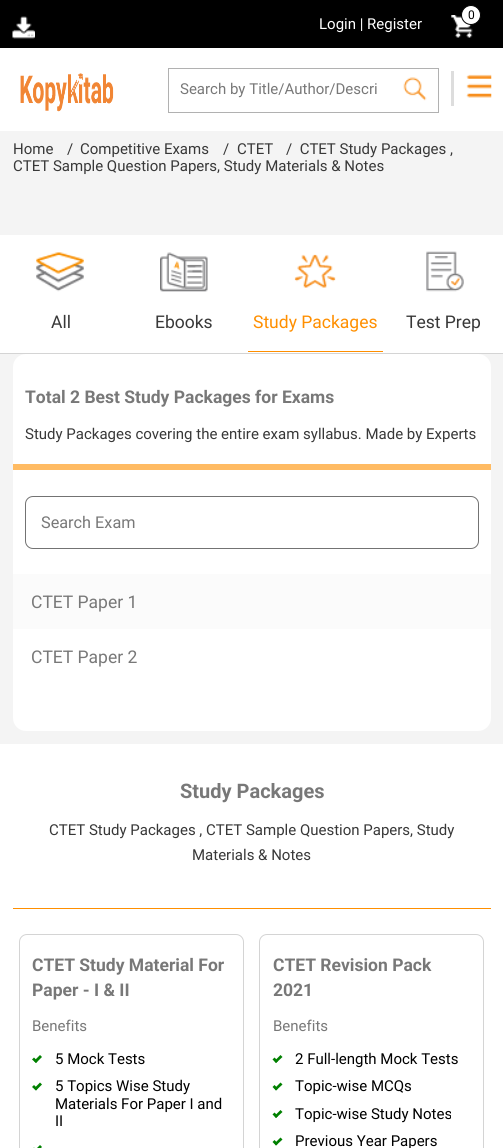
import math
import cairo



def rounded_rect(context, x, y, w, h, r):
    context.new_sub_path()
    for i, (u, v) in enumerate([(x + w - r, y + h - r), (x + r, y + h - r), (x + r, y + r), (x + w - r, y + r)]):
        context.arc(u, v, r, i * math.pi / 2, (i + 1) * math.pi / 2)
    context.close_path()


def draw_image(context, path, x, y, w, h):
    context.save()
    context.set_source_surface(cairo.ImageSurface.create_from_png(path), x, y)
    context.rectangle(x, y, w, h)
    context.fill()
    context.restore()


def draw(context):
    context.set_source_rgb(1, 1, 1)
    context.paint()
    context.set_source_rgb(0, 0, 0)
    context.rectangle(0, 0, 503, 48)
    context.fill()
    draw_image(context, "images/1.png", 451, 15, 22, 23)
    context.set_source_rgb(1, 1, 1)
    context.arc(471, 15, 9.5, 0, 2 * math.pi)
    context.fill_preserve()
    context.set_source_rgb(0, 0, 0)
    context.set_line_width(1)
    context.stroke()
    draw_image(context, "images/2.png", 12, 16, 23, 23)
    draw_image(context, "images/3.png", 20, 73, 94, 39)
    context.rectangle(168.5, 68.5, 270, 44)
    context.set_source_rgb(177 / 255, 177 / 255, 177 / 255)
    context.stroke()
    draw_image(context, "images/4.png", 403, 77, 24, 24)
    context.set_source_rgb(221 / 255, 221 / 255, 221 / 255)
    context.rectangle(451, 71, 3, 35)
    context.fill()
    draw_image(context, "images/5.png", 466, 74, 26, 24)
    context.set_source_rgb(244 / 255, 244 / 255, 244 / 255)
    context.rectangle(0, 131, 503, 613)
    context.fill()
    context.set_source_rgb(1, 1, 1)
    context.rectangle(0, 235, 503, 118)
    context.fill()
    context.set_source_rgb(212 / 255, 212 / 255, 212 / 255)
    context.rectangle(0, 353, 503, 1)
    context.fill()
    draw_image(context, "images/6.png", 36, 252, 48, 40)
    draw_image(context, "images/7.png", 160, 252, 48, 40)
    context.set_source_rgb(1, 143 / 255, 0)
    context.rectangle(248, 351, 135, 1)
    context.fill()
    draw_image(context, "images/8.png", 294, 254, 42, 34)
    draw_image(context, "images/9.png", 426, 251, 38, 41)
    context.set_source_rgb(1, 1, 1)
    rounded_rect(context, 13, 354, 478, 377, 13)
    context.fill()
    context.set_source_rgb(1, 187 / 255, 99 / 255)
    context.rectangle(13, 464, 478, 6)
    context.fill()
    rounded_rect(context, 25.5, 496.5, 453, 52, 7.5)
    context.set_source_rgb(115 / 255, 115 / 255, 115 / 255)
    context.stroke()
    context.set_source_rgb(251 / 255, 251 / 255, 251 / 255)
    context.rectangle(13, 574, 478, 55)
    context.fill()
    context.set_source_rgb(1, 143 / 255, 0)
    context.rectangle(13, 908, 478, 1)
    context.fill()
    rounded_rect(context, 19.5, 934.5, 224, 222, 7.5)
    context.set_source_rgb(212 / 255, 212 / 255, 212 / 255)
    context.stroke()
    context.set_source_rgb(0, 128 / 255, 0)
    context.new_path()
    context.move_to(40, 1055)
    context.line_to(42, 1057)
    context.line_to(36, 1063)
    context.line_to(34, 1061)
    context.close_path()
    context.fill()
    context.new_path()
    context.move_to(34, 1057.5)
    context.line_to(37.5, 1061)
    context.line_to(36, 1063)
    context.line_to(32, 1059.5)
    context.close_path()
    context.fill()
    context.new_path()
    context.move_to(40, 1082.5)
    context.line_to(42, 1084.5)
    context.line_to(36, 1090.5)
    context.line_to(34, 1088.5)
    context.close_path()
    context.fill()
    context.new_path()
    context.move_to(34, 1085)
    context.line_to(37.5, 1088.5)
    context.line_to(36, 1090.5)
    context.line_to(32, 1087)
    context.close_path()
    context.move_to(40, 1145)
    context.line_to(42, 1147)
    context.line_to(36, 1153)
    context.line_to(34, 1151)
    context.close_path()
    context.fill()
    context.new_path()
    context.move_to(34, 1147.5)
    context.line_to(37.5, 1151)
    context.line_to(36, 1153)
    context.line_to(32, 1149.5)
    context.close_path()
    context.fill()
    rounded_rect(context, 259.5, 934.5, 224, 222, 7.5)
    context.set_source_rgb(212 / 255, 212 / 255, 212 / 255)
    context.stroke()
    context.set_source_rgb(0, 128 / 255, 0)
    context.new_path()
    context.move_to(280.5, 1055)
    context.line_to(282.5, 1057)
    context.line_to(276, 1063)
    context.line_to(274.5, 1061)
    context.close_path()
    context.fill()
    context.new_path()
    context.move_to(274.5, 1057.5)
    context.line_to(278, 1061)
    context.line_to(276, 1063)
    context.line_to(272.5, 1059.5)
    context.close_path()
    context.fill()
    context.new_path()
    context.move_to(280.5, 1082.5)
    context.line_to(282.5, 1084.5)
    context.line_to(276, 1090.5)
    context.line_to(274.5, 1088.5)
    context.close_path()
    context.fill()
    context.new_path()
    context.move_to(274.5, 1085)
    context.line_to(278, 1088.5)
    context.line_to(276, 1090.5)
    context.line_to(272.5, 1087)
    context.close_path()
    context.fill()
    context.new_path()
    context.move_to(280.5, 1110)
    context.line_to(282.5, 1112)
    context.line_to(276, 1118)
    context.line_to(274.5, 1116)
    context.close_path()
    context.fill()
    context.new_path()
    context.move_to(274.5, 1112.5)
    context.line_to(278, 1116)
    context.line_to(276, 1118)
    context.line_to(272.5, 1114.5)
    context.close_path()
    context.fill()
    context.new_path()
    context.move_to(280.5, 1137.5)
    context.line_to(282.5, 1139.5)
    context.line_to(276, 1145.5)
    context.line_to(274.5, 1143.5)
    context.close_path()
    context.fill()
    context.new_path()
    context.move_to(274.5, 1140)
    context.line_to(278, 1143.5)
    context.line_to(276, 1145.5)
    context.line_to(272.5, 1142)
    context.close_path()
    context.fill()
    context.select_font_face("Roboto")
    context.set_font_size(12)
    context.set_source_rgb(0, 0, 0)
    context.move_to(468, 19)
    context.show_text("0")
    context.set_font_size(15)
    context.set_source_rgb(1, 1, 1)
    context.move_to(319, 29)
    context.show_text("Login | Register")
    context.set_source_rgb(120 / 255, 120 / 255, 120 / 255)
    context.move_to(180, 94)
    context.show_text("Search by Title/Author/Descri")
    context.set_source_rgb(56 / 255, 56 / 255, 56 / 255)
    context.move_to(13, 154)
    context.show_text("Home")
    context.move_to(67, 154)
    context.show_text("/")
    context.move_to(80, 154)
    context.show_text("Competitive Exams")
    context.move_to(223, 154)
    context.show_text("/")
    context.move_to(237, 154)
    context.show_text("CTET")
    context.move_to(286, 154)
    context.show_text("/  CTET Study Packages ,")
    context.move_to(13, 171)
    context.show_text("CTET Sample Question Papers, Study Materials & Notes")
    context.set_font_size(17.5)
    context.move_to(51, 328)
    context.show_text("All")
    context.move_to(155, 328)
    context.show_text("Ebooks")
    context.set_source_rgb(1, 143 / 255, 0)
    context.move_to(253, 328)
    context.show_text("Study Packages")
    context.set_source_rgb(56 / 255, 56 / 255, 56 / 255)
    context.move_to(406, 328)
    context.show_text("Test Prep")
    context.select_font_face("Roboto", cairo.FontSlant.NORMAL, cairo.FontWeight.BOLD)
    context.set_source_rgb(120 / 255, 120 / 255, 120 / 255)
    context.move_to(25, 403)
    context.show_text("Total 2 Best Study Packages for Exams")
    context.select_font_face("Roboto")
    context.set_font_size(15)
    context.set_source_rgb(56 / 255, 56 / 255, 56 / 255)
    context.move_to(25, 439)
    context.show_text("Study Packages covering the entire exam syllabus. Made by Experts")
    context.set_font_size(16.25)
    context.set_source_rgb(120 / 255, 120 / 255, 120 / 255)
    context.move_to(41, 528)
    context.show_text("Search Exam")
    context.set_font_size(17.5)
    context.move_to(31, 608)
    context.show_text("CTET Paper 1")
    context.move_to(31, 663)
    context.show_text("CTET Paper 2")
    context.select_font_face("Roboto", cairo.FontSlant.NORMAL, cairo.FontWeight.BOLD)
    context.set_font_size(20)
    context.move_to(180, 798)
    context.show_text("Study Packages")
    context.select_font_face("Roboto")
    context.set_font_size(15)
    context.set_source_rgb(56 / 255, 56 / 255, 56 / 255)
    context.move_to(49, 835)
    context.show_text("CTET Study Packages , CTET Sample Question Papers, Study")
    context.move_to(192, 860)
    context.show_text("Materials & Notes")
    context.select_font_face("Roboto", cairo.FontSlant.NORMAL, cairo.FontWeight.BOLD)
    context.set_font_size(17.5)
    context.set_source_rgb(120 / 255, 120 / 255, 120 / 255)
    context.move_to(32, 971)
    context.show_text("CTET Study Material For")
    context.move_to(32, 996)
    context.show_text("Paper - I & II")
    context.select_font_face("Roboto")
    context.set_font_size(15)
    context.move_to(32, 1031)
    context.show_text("Benefits")
    context.set_source_rgb(0, 0, 0)
    context.move_to(55, 1064)
    context.show_text("5 Mock Tests")
    context.move_to(55, 1091)
    context.show_text("5 Topics Wise Study")
    context.move_to(55, 1109)
    context.show_text("Materials For Paper I and")
    context.move_to(55, 1126)
    context.show_text("II")
    context.select_font_face("Roboto", cairo.FontSlant.NORMAL, cairo.FontWeight.BOLD)
    context.set_font_size(17.5)
    context.set_source_rgb(120 / 255, 120 / 255, 120 / 255)
    context.move_to(273, 971)
    context.show_text("CTET Revision Pack")
    context.move_to(273, 996)
    context.show_text("2021")
    context.select_font_face("Roboto")
    context.set_font_size(15)
    context.move_to(273, 1031)
    context.show_text("Benefits")
    context.set_source_rgb(0, 0, 0)
    context.move_to(295, 1064)
    context.show_text("2 Full-length Mock Tests")
    context.move_to(295, 1091)
    context.show_text("Topic-wise MCQs")
    context.move_to(295, 1119)
    context.show_text("Topic-wise Study Notes")
    context.move_to(295, 1146)
    context.show_text("Previous Year Papers")


surface = cairo.ImageSurface(cairo.Format.RGB24, 503, 1148)
context = cairo.Context(surface)
options = cairo.FontOptions()
options.set_hint_metrics(cairo.HintMetrics.OFF)
options.set_hint_style(cairo.HintStyle.NONE)
context.set_font_options(options)
context.set_miter_limit(4)
draw(context)
surface.write_to_png("out.png")
